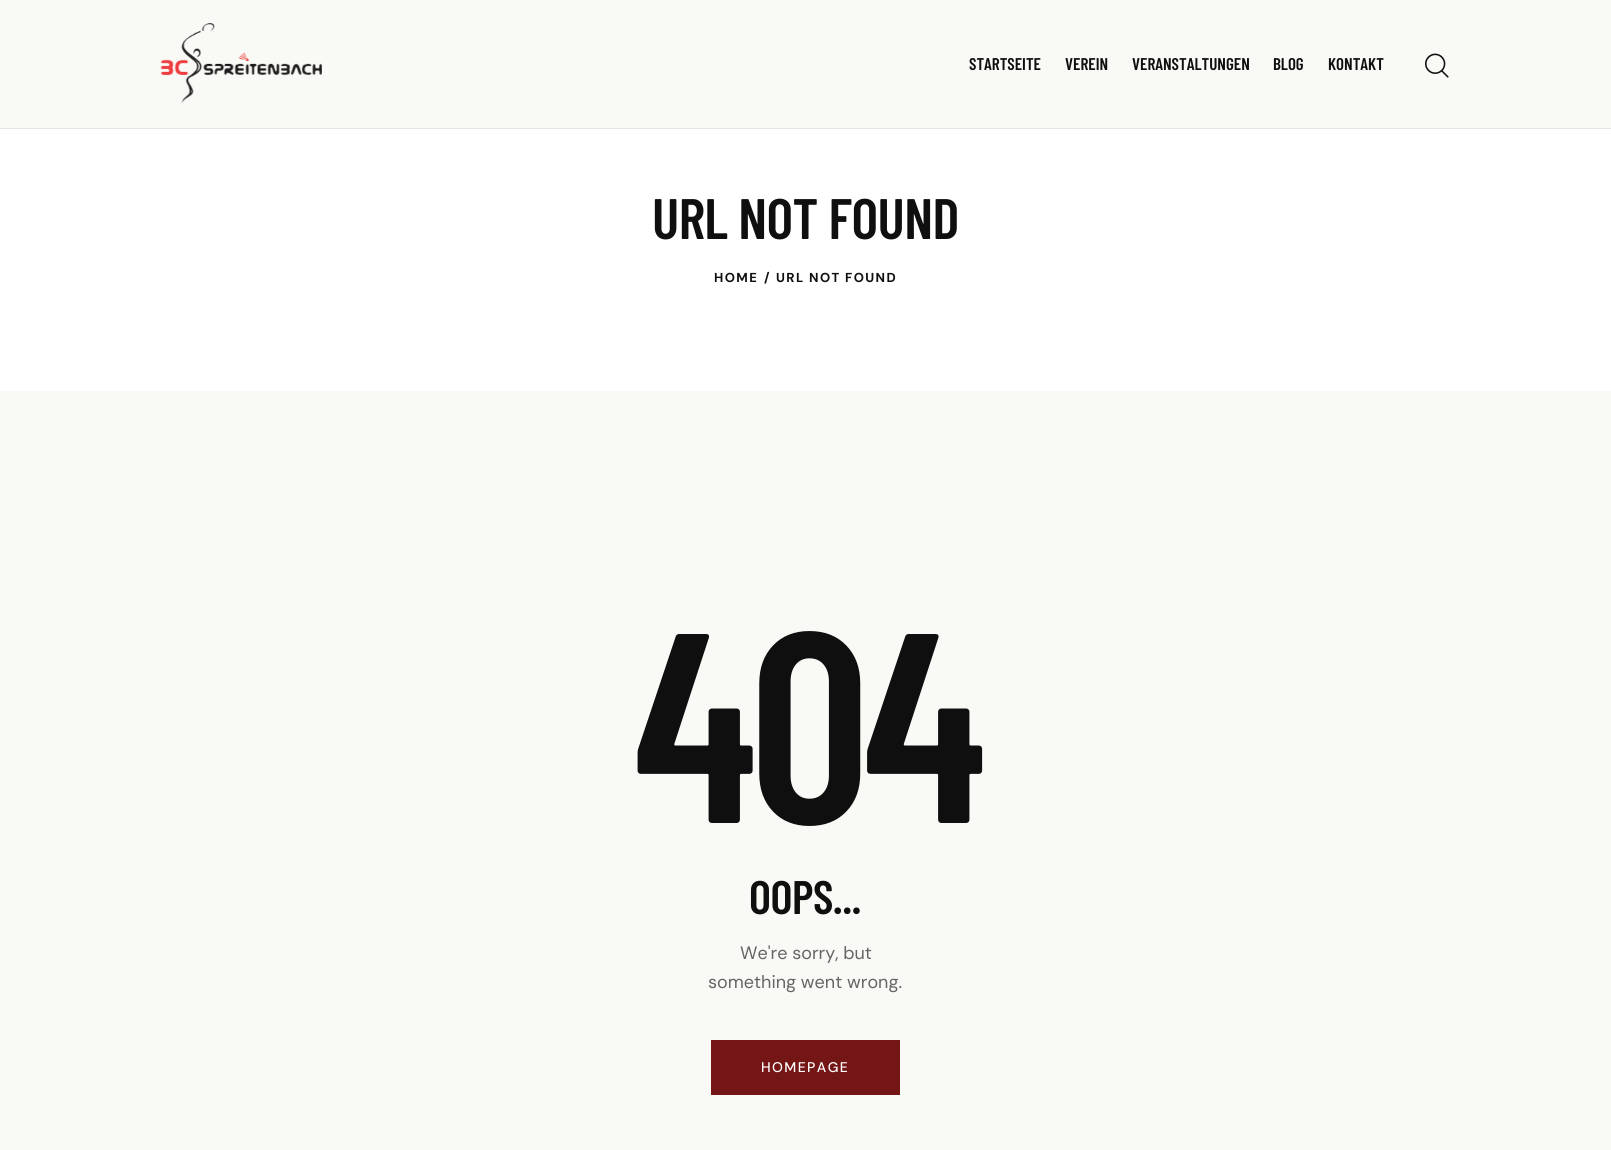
import math
import cairo



def draw_spaced(context, x, y, s, letter, word):
    context.move_to(x, y)
    for ch in s:
        context.show_text(ch)
        context.rel_move_to(letter + word * (ch == ' '), 0)


def draw_image(context, path, x, y, w, h):
    context.save()
    context.set_source_surface(cairo.ImageSurface.create_from_png(path), x, y)
    context.rectangle(x, y, w, h)
    context.fill()
    context.restore()


def draw(context):
    context.set_source_rgb(249 / 255, 249 / 255, 246 / 255)
    context.paint()
    context.set_source_rgb(230 / 255, 228 / 255, 224 / 255)
    context.rectangle(0, 128, 1611, 1)
    context.fill()
    draw_image(context, "images/1.png", 160, 23, 162, 81)
    draw_image(context, "images/2.png", 1425, 53, 24, 25)
    context.set_source_rgb(1, 1, 1)
    context.rectangle(0, 129, 1611, 262)
    context.fill()
    context.set_source_rgb(116 / 255, 22 / 255, 22 / 255)
    context.rectangle(711, 1040, 189, 55)
    context.fill()
    context.select_font_face("Barlow Condensed SemiBold")
    context.set_font_size(17)
    context.set_source_rgb(15 / 255, 15 / 255, 15 / 255)
    context.move_to(969, 70)
    context.show_text("STARTSEITE")
    context.move_to(1065, 70)
    context.show_text("VEREIN")
    context.move_to(1132, 70)
    context.show_text("VERANSTALTUNGEN")
    context.move_to(1273, 70)
    context.show_text("BLOG")
    context.move_to(1328, 70)
    context.show_text("KONTAKT")
    context.set_font_size(57)
    draw_spaced(context, 652, 239, "URL NOT FOUND", -0.6, 0)
    context.select_font_face("DM Sans", cairo.FontSlant.NORMAL, cairo.FontWeight.BOLD)
    context.set_font_size(13)
    draw_spaced(context, 714, 282, "HOME", 1.4, 0)
    draw_spaced(context, 764, 282, "/", 1.4, 0)
    draw_spaced(context, 776, 282, "URL NOT FOUND", 1.4, 0)
    context.select_font_face("Barlow Condensed SemiBold")
    context.set_font_size(270)
    draw_spaced(context, 633, 823, "404", -8, 0)
    context.set_font_size(47)
    draw_spaced(context, 749, 914, "OOPS...", -0.5, 0)
    context.select_font_face("DM Sans")
    context.set_font_size(18)
    context.set_source_rgb(101 / 255, 101 / 255, 101 / 255)
    context.move_to(740, 959)
    context.show_text("We're sorry, but")
    context.move_to(708, 988)
    context.show_text("something went wrong.")
    context.select_font_face("DM Sans Medium")
    context.set_font_size(14)
    context.set_source_rgb(1, 1, 1)
    draw_spaced(context, 761, 1072, "HOMEPAGE", 1.4, 0)


surface = cairo.ImageSurface(cairo.Format.RGB24, 1611, 1150)
context = cairo.Context(surface)
options = cairo.FontOptions()
options.set_hint_metrics(cairo.HintMetrics.OFF)
options.set_hint_style(cairo.HintStyle.NONE)
context.set_font_options(options)
context.set_miter_limit(4)
draw(context)
surface.write_to_png("out.png")
